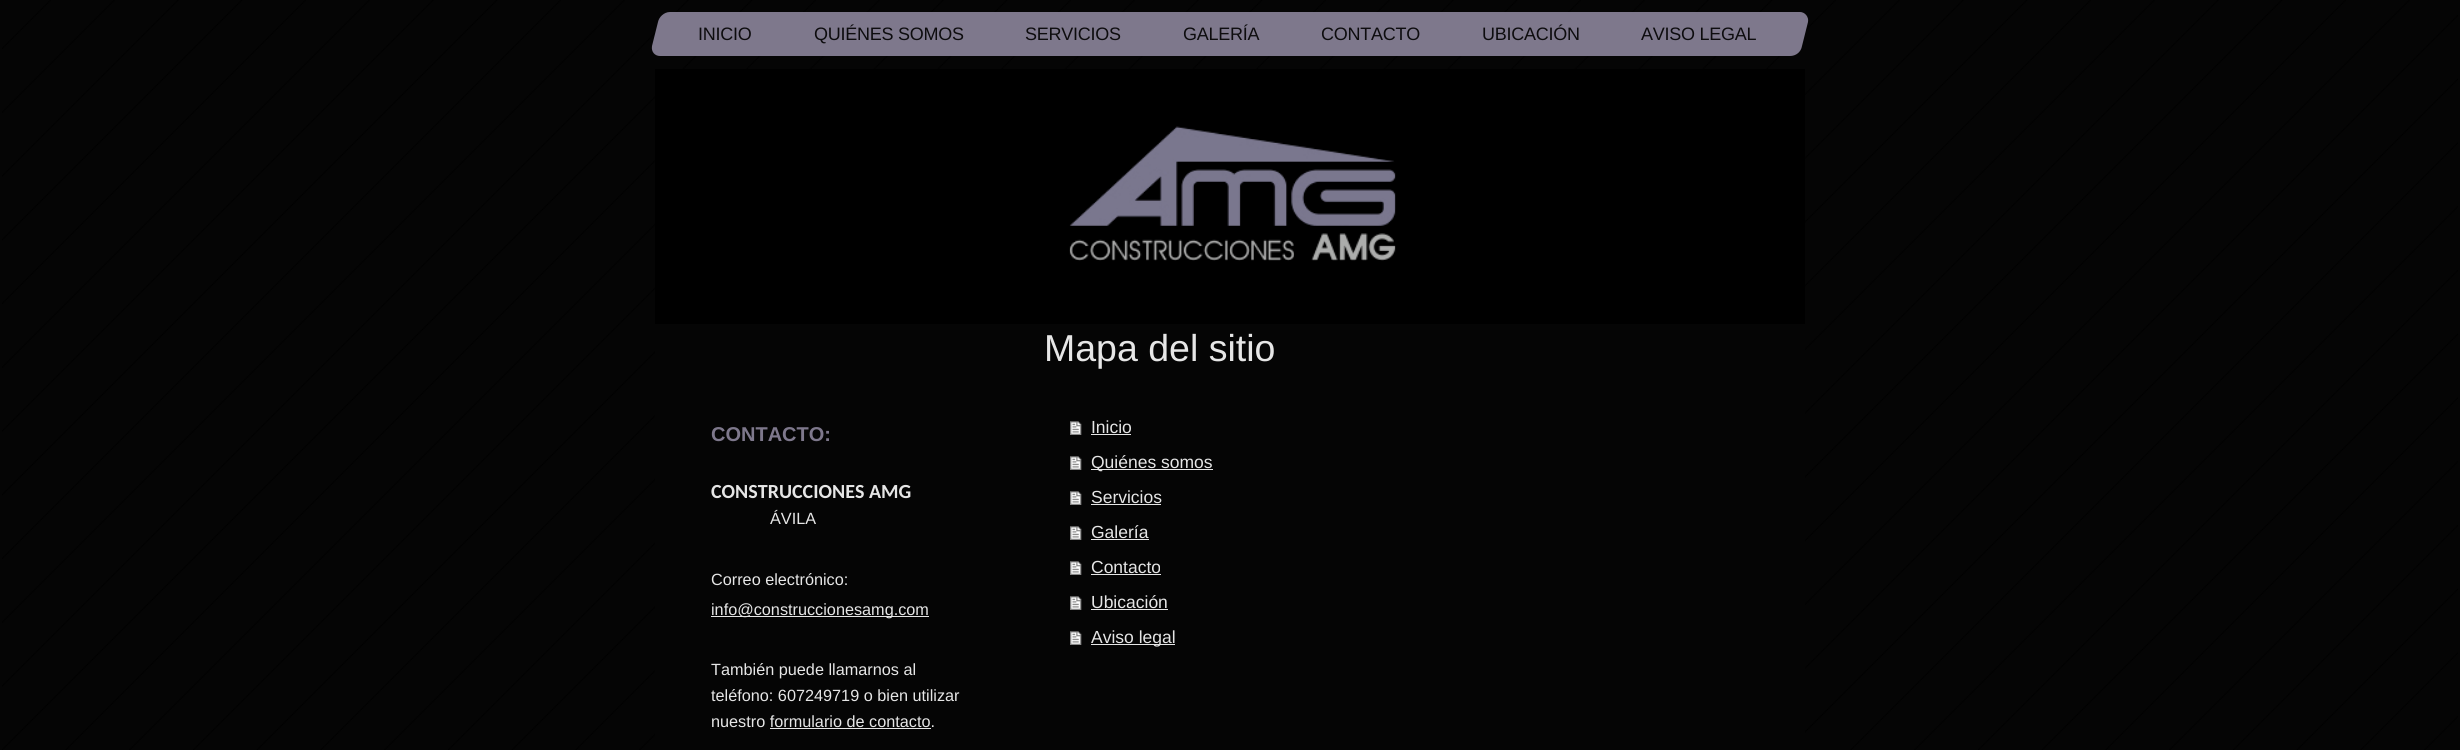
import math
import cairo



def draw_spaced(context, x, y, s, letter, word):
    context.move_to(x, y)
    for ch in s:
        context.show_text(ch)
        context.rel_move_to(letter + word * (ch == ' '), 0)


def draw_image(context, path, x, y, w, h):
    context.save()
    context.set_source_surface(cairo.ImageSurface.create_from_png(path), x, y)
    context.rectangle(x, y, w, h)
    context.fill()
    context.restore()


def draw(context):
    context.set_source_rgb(5 / 255, 5 / 255, 5 / 255)
    context.paint()
    draw_image(context, "images/1.png", 2, 0, 2456, 750)
    context.set_source_rgb(126 / 255, 120 / 255, 140 / 255)
    context.new_path()
    context.move_to(670, 12)
    context.line_to(1800, 12)
    context.curve_to(1805, 12, 1809, 17, 1808, 22)
    context.line_to(1802, 46)
    context.curve_to(1801, 52, 1796, 56, 1790, 56)
    context.line_to(660, 56)
    context.curve_to(655, 56, 651, 52, 652, 46)
    context.line_to(658, 22)
    context.curve_to(659, 17, 664, 12, 670, 12)
    context.close_path()
    context.fill()
    context.set_source_rgb(0, 0, 0)
    context.rectangle(655, 69, 1150, 255)
    context.fill()
    draw_image(context, "images/2.png", 1069, 126, 327, 135)
    context.set_source_rgb(5 / 255, 5 / 255, 5 / 255)
    context.rectangle(655, 324, 1150, 426)
    context.fill()
    context.set_source_rgb(230 / 255, 230 / 255, 230 / 255)
    context.rectangle(711, 616, 218, 1)
    context.fill()
    context.rectangle(770, 728, 161, 1)
    context.fill()
    draw_image(context, "images/3.png", 1070, 421, 12, 14)
    context.rectangle(1091, 434, 40, 1)
    context.fill()
    draw_image(context, "images/3.png", 1070, 456, 12, 14)
    context.rectangle(1091, 469, 122, 1)
    context.fill()
    draw_image(context, "images/3.png", 1070, 491, 12, 14)
    context.rectangle(1091, 504, 70, 1)
    context.fill()
    draw_image(context, "images/3.png", 1070, 526, 12, 14)
    context.rectangle(1091, 539, 58, 1)
    context.fill()
    draw_image(context, "images/3.png", 1070, 561, 12, 14)
    context.rectangle(1091, 574, 70, 1)
    context.fill()
    draw_image(context, "images/3.png", 1070, 596, 12, 14)
    context.rectangle(1091, 609, 77, 1)
    context.fill()
    draw_image(context, "images/3.png", 1070, 631, 12, 14)
    context.rectangle(1091, 644, 84, 1)
    context.fill()
    context.select_font_face("Liberation Sans")
    context.set_font_size(18)
    context.set_source_rgb(13 / 255, 12 / 255, 14 / 255)
    draw_spaced(context, 698, 40, "INICIO", -0.25, 0)
    draw_spaced(context, 814, 40, "QUIÉNES SOMOS", -0.25, 0)
    draw_spaced(context, 1025, 40, "SERVICIOS", -0.25, 0)
    draw_spaced(context, 1183, 40, "GALERÍA", -0.25, 0)
    draw_spaced(context, 1321, 40, "CONTACTO", -0.25, 0)
    draw_spaced(context, 1482, 40, "UBICACIÓN", -0.25, 0)
    draw_spaced(context, 1641, 40, "AVISO LEGAL", -0.25, 0)
    context.select_font_face("Liberation Sans", cairo.FontSlant.NORMAL, cairo.FontWeight.BOLD)
    context.set_font_size(20)
    context.set_source_rgb(126 / 255, 120 / 255, 140 / 255)
    context.move_to(711, 441)
    context.show_text("CONTACTO:")
    context.select_font_face("Carlito", cairo.FontSlant.NORMAL, cairo.FontWeight.BOLD)
    context.set_source_rgb(230 / 255, 230 / 255, 230 / 255)
    context.move_to(711, 498)
    context.show_text("CONSTRUCCIONES AMG")
    context.select_font_face("Liberation Sans")
    context.set_font_size(16.25)
    context.move_to(770, 524)
    context.show_text("ÁVILA")
    context.move_to(711, 585)
    context.show_text("Correo electrónico:")
    context.move_to(711, 615)
    context.show_text("info@construccionesamg.com")
    context.move_to(711, 675)
    context.show_text("También puede llamarnos al")
    context.move_to(711, 701)
    context.show_text("teléfono: 607249719 o bien utilizar")
    context.move_to(711, 727)
    context.show_text("nuestro formulario de contacto.")
    context.set_font_size(37.5)
    context.move_to(1044, 361)
    context.show_text("Mapa del sitio")
    context.set_font_size(17.5)
    context.move_to(1091, 433)
    context.show_text("Inicio")
    context.move_to(1091, 468)
    context.show_text("Quiénes somos")
    context.move_to(1091, 503)
    context.show_text("Servicios")
    context.move_to(1091, 538)
    context.show_text("Galería")
    context.move_to(1091, 573)
    context.show_text("Contacto")
    context.move_to(1091, 608)
    context.show_text("Ubicación")
    context.move_to(1091, 643)
    context.show_text("Aviso legal")


surface = cairo.ImageSurface(cairo.Format.RGB24, 2460, 750)
context = cairo.Context(surface)
options = cairo.FontOptions()
options.set_hint_metrics(cairo.HintMetrics.OFF)
options.set_hint_style(cairo.HintStyle.NONE)
context.set_font_options(options)
context.set_miter_limit(4)
draw(context)
surface.write_to_png("out.png")
